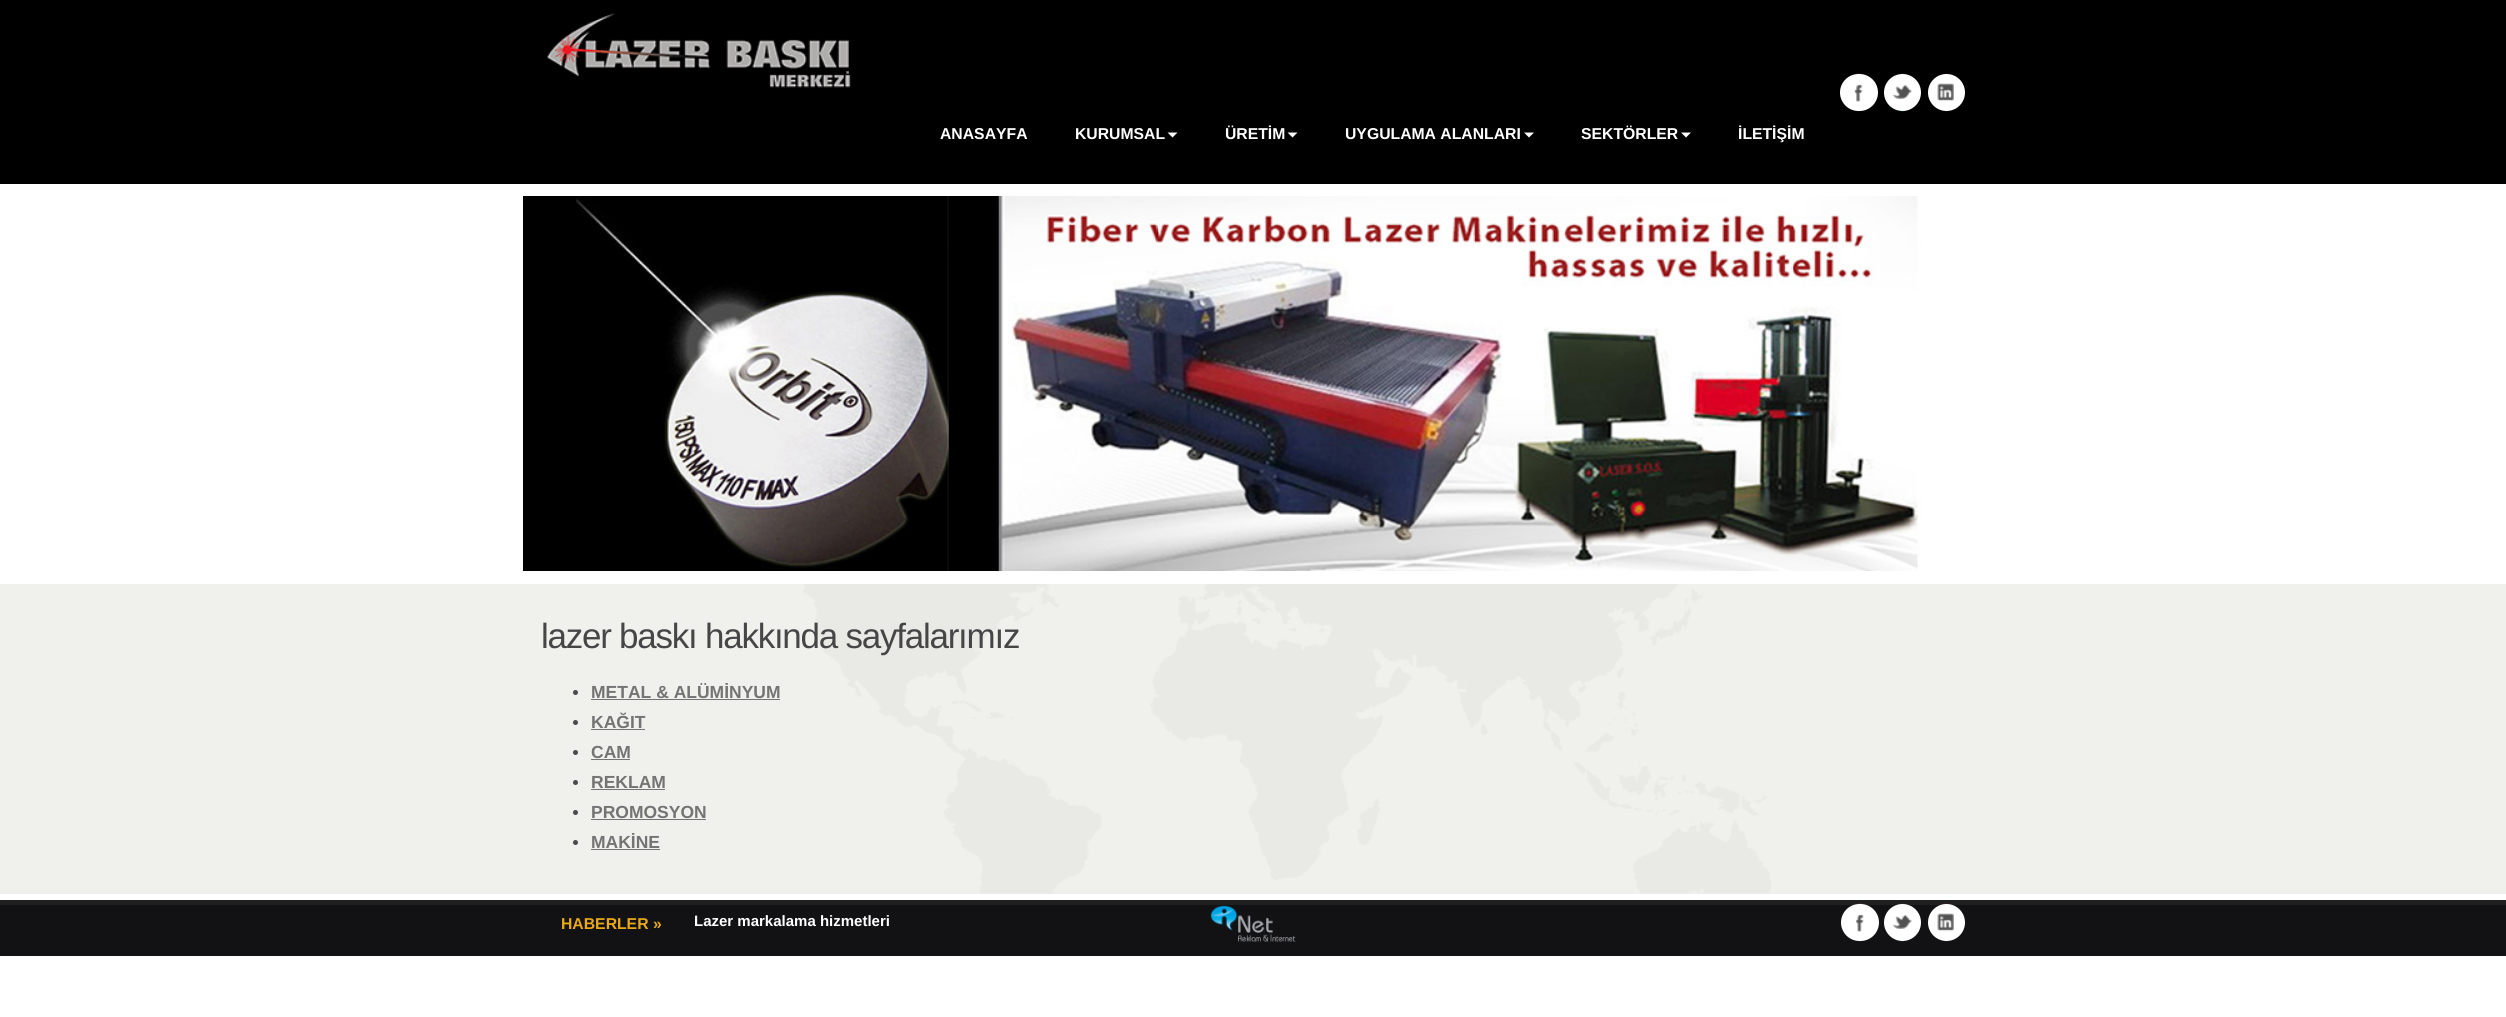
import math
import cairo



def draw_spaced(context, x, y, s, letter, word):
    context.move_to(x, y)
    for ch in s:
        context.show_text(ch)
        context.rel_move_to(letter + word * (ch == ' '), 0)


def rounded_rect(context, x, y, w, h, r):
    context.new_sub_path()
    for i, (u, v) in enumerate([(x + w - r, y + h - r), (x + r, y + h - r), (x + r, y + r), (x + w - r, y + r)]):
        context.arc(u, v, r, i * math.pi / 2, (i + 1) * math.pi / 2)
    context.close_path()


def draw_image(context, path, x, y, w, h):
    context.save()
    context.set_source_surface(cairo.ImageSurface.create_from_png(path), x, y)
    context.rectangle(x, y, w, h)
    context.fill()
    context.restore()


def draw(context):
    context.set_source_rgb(1, 1, 1)
    context.paint()
    context.set_source_rgb(0, 0, 0)
    context.rectangle(0, 0, 2506, 184)
    context.fill()
    draw_image(context, "images/1.png", 547, 12, 304, 76)
    context.set_source_rgb(1, 1, 1)
    rounded_rect(context, 1840, 74, 38, 37, 18.5)
    context.fill()
    draw_image(context, "images/2.png", 1854, 73, 9, 39)
    context.arc(1902.5, 92.5, 18.5, 0, 2 * math.pi)
    context.fill()
    draw_image(context, "images/3.png", 1892, 73, 20, 39)
    context.arc(1946.5, 92.5, 18.5, 0, 2 * math.pi)
    context.fill()
    draw_image(context, "images/4.png", 1937, 73, 17, 39)
    context.new_path()
    context.move_to(1167.5, 132.5)
    context.line_to(1177.5, 132.5)
    context.line_to(1172.5, 137.5)
    context.close_path()
    context.fill()
    context.new_path()
    context.move_to(1287.5, 132.5)
    context.line_to(1297.5, 132.5)
    context.line_to(1292.5, 137.5)
    context.close_path()
    context.fill()
    context.new_path()
    context.move_to(1524, 132.5)
    context.line_to(1534, 132.5)
    context.line_to(1529, 137.5)
    context.close_path()
    context.fill()
    context.new_path()
    context.move_to(1681, 132.5)
    context.line_to(1691, 132.5)
    context.line_to(1686, 137.5)
    context.close_path()
    context.fill()
    draw_image(context, "images/5.png", 523, 196, 1462, 375)
    context.set_source_rgb(240 / 255, 240 / 255, 237 / 255)
    context.rectangle(0, 584, 2506, 310)
    context.fill()
    draw_image(context, "images/6.png", 802, 584, 969, 310)
    context.set_source_rgb(75 / 255, 75 / 255, 75 / 255)
    context.arc(575.5, 692.5, 2.5, 0, 2 * math.pi)
    context.fill()
    context.set_source_rgb(116 / 255, 116 / 255, 116 / 255)
    context.rectangle(591, 699, 189, 1)
    context.fill()
    context.set_source_rgb(75 / 255, 75 / 255, 75 / 255)
    context.arc(575.5, 722.5, 2.5, 0, 2 * math.pi)
    context.fill()
    context.set_source_rgb(116 / 255, 116 / 255, 116 / 255)
    context.rectangle(591, 729, 54, 1)
    context.fill()
    context.set_source_rgb(75 / 255, 75 / 255, 75 / 255)
    context.arc(575.5, 752.5, 2.5, 0, 2 * math.pi)
    context.fill()
    context.set_source_rgb(116 / 255, 116 / 255, 116 / 255)
    context.rectangle(591, 759, 39, 1)
    context.fill()
    context.set_source_rgb(75 / 255, 75 / 255, 75 / 255)
    context.arc(575.5, 782.5, 2.5, 0, 2 * math.pi)
    context.fill()
    context.set_source_rgb(116 / 255, 116 / 255, 116 / 255)
    context.rectangle(591, 789, 74, 1)
    context.fill()
    context.set_source_rgb(75 / 255, 75 / 255, 75 / 255)
    context.arc(575.5, 812.5, 2.5, 0, 2 * math.pi)
    context.fill()
    context.set_source_rgb(116 / 255, 116 / 255, 116 / 255)
    context.rectangle(591, 819, 115, 1)
    context.fill()
    context.set_source_rgb(75 / 255, 75 / 255, 75 / 255)
    context.arc(575.5, 842.5, 2.5, 0, 2 * math.pi)
    context.fill()
    context.set_source_rgb(116 / 255, 116 / 255, 116 / 255)
    context.rectangle(591, 849, 69, 1)
    context.fill()
    context.set_source_rgb(18 / 255, 18 / 255, 20 / 255)
    context.rectangle(0, 905, 2506, 51)
    context.fill()
    context.set_source_rgb(31 / 255, 31 / 255, 31 / 255)
    context.rectangle(0, 900, 2506, 5)
    context.fill()
    draw_image(context, "images/7.png", 1210, 905, 86, 37)
    context.set_source_rgb(1, 1, 1)
    rounded_rect(context, 1841, 904, 38, 37, 18.5)
    context.fill()
    draw_image(context, "images/8.png", 1856, 903, 8, 39)
    context.arc(1902.5, 922.5, 18.5, 0, 2 * math.pi)
    context.fill()
    draw_image(context, "images/9.png", 1892, 903, 20, 39)
    context.arc(1946.5, 922.5, 18.5, 0, 2 * math.pi)
    context.fill()
    draw_image(context, "images/10.png", 1937, 903, 17, 39)
    context.select_font_face("Liberation Sans", cairo.FontSlant.NORMAL, cairo.FontWeight.BOLD)
    context.set_font_size(15.75)
    context.move_to(940, 139)
    context.show_text("ANASAYFA")
    context.move_to(1075, 139)
    context.show_text("KURUMSAL")
    context.move_to(1225, 139)
    context.show_text("ÜRETİM")
    context.move_to(1345, 139)
    context.show_text("UYGULAMA ALANLARI")
    context.move_to(1581, 139)
    context.show_text("SEKTÖRLER")
    context.move_to(1738, 139)
    context.show_text("İLETİŞİM")
    context.select_font_face("Liberation Sans")
    context.set_font_size(35)
    context.set_source_rgb(70 / 255, 70 / 255, 70 / 255)
    draw_spaced(context, 541, 648, "lazer baskı hakkında sayfalarımız", -1.25, 0)
    context.select_font_face("Liberation Sans", cairo.FontSlant.NORMAL, cairo.FontWeight.BOLD)
    context.set_font_size(17.5)
    context.set_source_rgb(116 / 255, 116 / 255, 116 / 255)
    context.move_to(591, 698)
    context.show_text("METAL & ALÜMİNYUM")
    context.move_to(591, 728)
    context.show_text("KAĞIT")
    context.move_to(591, 758)
    context.show_text("CAM")
    context.move_to(591, 788)
    context.show_text("REKLAM")
    context.move_to(591, 818)
    context.show_text("PROMOSYON")
    context.move_to(591, 848)
    context.show_text("MAKİNE")
    context.set_font_size(15.75)
    context.set_source_rgb(233 / 255, 169 / 255, 24 / 255)
    context.move_to(561, 929)
    context.show_text("HABERLER »")
    context.set_font_size(15)
    context.set_source_rgb(1, 1, 1)
    context.move_to(694, 926)
    context.show_text("Lazer markalama hizmetleri")


surface = cairo.ImageSurface(cairo.Format.RGB24, 2506, 1017)
context = cairo.Context(surface)
options = cairo.FontOptions()
options.set_hint_metrics(cairo.HintMetrics.OFF)
options.set_hint_style(cairo.HintStyle.NONE)
context.set_font_options(options)
context.set_miter_limit(4)
draw(context)
surface.write_to_png("out.png")
